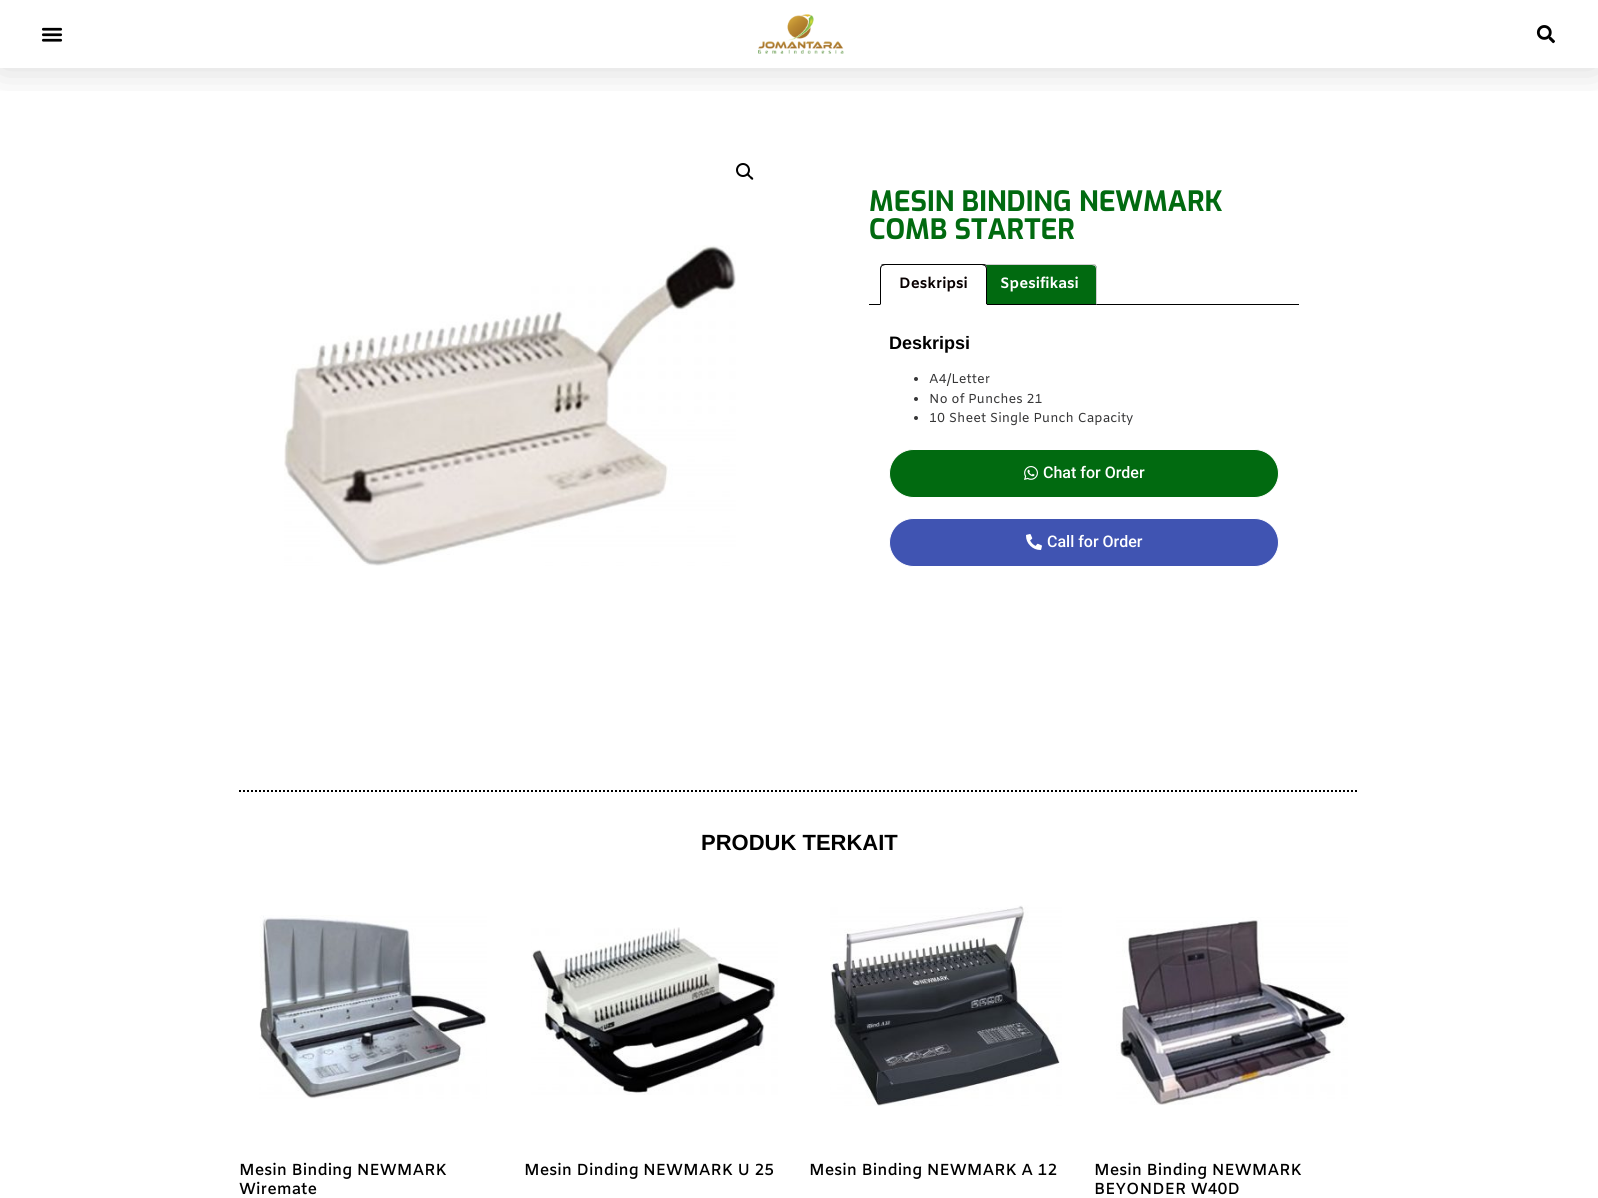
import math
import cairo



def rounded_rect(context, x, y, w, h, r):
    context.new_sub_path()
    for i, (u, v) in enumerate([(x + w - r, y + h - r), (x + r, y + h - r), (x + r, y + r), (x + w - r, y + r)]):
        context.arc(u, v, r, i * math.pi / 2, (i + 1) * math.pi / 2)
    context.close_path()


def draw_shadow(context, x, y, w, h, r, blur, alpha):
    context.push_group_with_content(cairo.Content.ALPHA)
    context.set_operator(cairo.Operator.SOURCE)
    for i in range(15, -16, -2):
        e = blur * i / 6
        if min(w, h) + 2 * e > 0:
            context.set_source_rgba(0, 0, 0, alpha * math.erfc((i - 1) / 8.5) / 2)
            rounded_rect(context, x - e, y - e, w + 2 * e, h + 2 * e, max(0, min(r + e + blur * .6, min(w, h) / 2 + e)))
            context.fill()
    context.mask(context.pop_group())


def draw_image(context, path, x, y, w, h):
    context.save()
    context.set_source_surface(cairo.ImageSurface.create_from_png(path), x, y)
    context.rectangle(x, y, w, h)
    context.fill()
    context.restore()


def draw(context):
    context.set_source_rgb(1, 1, 1)
    context.paint()
    context.save()
    context.rectangle(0, 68, 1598, 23)
    context.clip()
    context.set_source_rgb(0, 0, 0)
    draw_shadow(context, 0, 0, 1598, 68, 0, 20, 0.16)
    context.restore()
    draw_image(context, "images/1.png", 41, 27, 22, 15)
    draw_image(context, "images/2.png", 758, 14, 86, 40)
    draw_image(context, "images/3.png", 1536, 25, 19, 19)
    context.arc(743, 170, 6, 0, 2 * math.pi)
    context.set_source_rgb(0, 0, 0)
    context.stroke()
    context.new_path()
    context.move_to(747, 174)
    context.curve_to(748.5, 172.5, 750, 175.5, 750.5, 176)
    context.curve_to(751.5, 176.5, 754, 178, 753, 179.5)
    context.curve_to(751.5, 180.5, 750, 178, 749.5, 177.5)
    context.curve_to(748.5, 176.5, 746, 175, 747, 174)
    context.close_path()
    context.fill()
    draw_image(context, "images/4.png", 284, 245, 452, 321)
    context.rectangle(869, 304, 430, 1)
    context.fill()
    context.set_source_rgb(1 / 255, 106 / 255, 16 / 255)
    context.new_path()
    context.move_to(986, 264)
    context.line_to(1092, 264)
    context.curve_to(1095, 264, 1097, 266, 1097, 269)
    context.line_to(1097, 305)
    context.line_to(981, 305)
    context.line_to(981, 269)
    context.curve_to(981, 266, 983, 264, 986, 264)
    context.close_path()
    context.fill()
    context.set_source_rgb(211 / 255, 206 / 255, 210 / 255)
    context.new_path()
    context.move_to(986, 264)
    context.curve_to(984, 264, 983, 264, 982, 265)
    context.line_to(983, 266)
    context.line_to(986, 265)
    context.line_to(1092, 265)
    context.line_to(1095, 266)
    context.line_to(1096, 265)
    context.curve_to(1095, 264, 1094, 264, 1092, 264)
    context.close_path()
    context.fill()
    context.new_path()
    context.move_to(1097, 305)
    context.line_to(1097, 269)
    context.curve_to(1097, 267.5, 1096.5, 266, 1095.5, 265.5)
    context.line_to(1095, 266)
    context.curve_to(1095.5, 267, 1096, 268, 1096, 269)
    context.line_to(1096, 304)
    context.close_path()
    context.fill()
    context.set_source_rgb(0, 0, 0)
    context.new_path()
    context.move_to(1097, 305)
    context.line_to(1096, 304)
    context.line_to(982, 304)
    context.line_to(981, 305)
    context.close_path()
    context.fill()
    context.set_source_rgb(1, 1, 1)
    context.new_path()
    context.move_to(885, 264)
    context.line_to(982, 264)
    context.curve_to(985, 264, 987, 266, 987, 269)
    context.line_to(987, 305)
    context.line_to(880, 305)
    context.line_to(880, 269)
    context.curve_to(880, 266, 882, 264, 885, 264)
    context.close_path()
    context.fill()
    context.set_source_rgb(0, 0, 0)
    context.new_path()
    context.move_to(885, 264)
    context.curve_to(884, 264, 882, 264, 881, 265)
    context.line_to(882, 266)
    context.line_to(885, 265)
    context.line_to(982, 265)
    context.line_to(985, 266)
    context.line_to(986, 265)
    context.curve_to(985, 264, 984, 264, 982, 264)
    context.close_path()
    context.fill()
    context.new_path()
    context.move_to(987, 305)
    context.line_to(987, 269)
    context.curve_to(987, 267.5, 986.5, 266, 985.5, 265.5)
    context.line_to(985, 266)
    context.curve_to(985.5, 267, 986, 268, 986, 269)
    context.line_to(986, 304)
    context.close_path()
    context.fill()
    context.set_source_rgb(1, 1, 1)
    context.new_path()
    context.move_to(987, 305)
    context.line_to(986, 304)
    context.line_to(881, 304)
    context.line_to(880, 305)
    context.close_path()
    context.fill()
    context.set_source_rgb(0, 0, 0)
    context.new_path()
    context.move_to(880, 305)
    context.line_to(881, 304)
    context.line_to(881, 269)
    context.curve_to(881, 268, 881.5, 267, 882, 266)
    context.line_to(881.5, 265.5)
    context.curve_to(880.5, 266, 880, 267.5, 880, 269)
    context.close_path()
    context.fill()
    context.set_source_rgb(54 / 255, 54 / 255, 55 / 255)
    context.arc(916, 379, 2, 0, 2 * math.pi)
    context.fill()
    context.arc(916, 399, 2, 0, 2 * math.pi)
    context.fill()
    context.arc(916, 418, 2, 0, 2 * math.pi)
    context.fill()
    context.set_source_rgb(1 / 255, 106 / 255, 16 / 255)
    rounded_rect(context, 889.5, 449.5, 389, 48, 24)
    context.fill_preserve()
    context.set_source_rgb(1, 1, 1)
    context.set_line_width(1)
    context.stroke()
    draw_image(context, "images/5.png", 1024, 466, 14, 14)
    context.set_source_rgb(64 / 255, 84 / 255, 178 / 255)
    rounded_rect(context, 889.5, 518.5, 389, 48, 24)
    context.fill_preserve()
    context.set_source_rgb(1, 1, 1)
    context.stroke()
    draw_image(context, "images/6.png", 1026, 534, 16, 16)
    context.new_path()
    context.move_to(239, 791)
    context.line_to(1359, 791)
    context.set_source_rgb(0, 0, 0)
    context.set_line_width(2)
    context.set_dash([2, 2])
    context.stroke()
    draw_image(context, "images/7.png", 259, 915, 228, 184)
    draw_image(context, "images/8.png", 531, 927, 247, 168)
    draw_image(context, "images/9.png", 830, 905, 232, 201)
    draw_image(context, "images/10.png", 1116, 917, 232, 188)
    context.select_font_face("Exo", cairo.FontSlant.NORMAL, cairo.FontWeight.BOLD)
    context.set_font_size(28)
    context.set_source_rgb(1 / 255, 106 / 255, 16 / 255)
    context.move_to(869, 211)
    context.show_text("MESIN BINDING NEWMARK")
    context.move_to(869, 239)
    context.show_text("COMB STARTER")
    context.select_font_face("Amiko", cairo.FontSlant.NORMAL, cairo.FontWeight.BOLD)
    context.set_font_size(15)
    context.set_source_rgb(8 / 255, 0, 0)
    context.move_to(899, 288)
    context.show_text("Deskripsi")
    context.set_source_rgb(1, 1, 1)
    context.move_to(1000, 288)
    context.show_text("Spesifikasi")
    context.select_font_face("Liberation Sans", cairo.FontSlant.NORMAL, cairo.FontWeight.BOLD)
    context.set_font_size(18)
    context.set_source_rgb(0, 0, 0)
    context.move_to(889, 349)
    context.show_text("Deskripsi")
    context.select_font_face("Amiko")
    context.set_font_size(13)
    context.set_source_rgb(54 / 255, 54 / 255, 55 / 255)
    context.move_to(929, 383)
    context.show_text("A4/Letter")
    context.move_to(929, 403)
    context.show_text("No of Punches 21")
    context.move_to(929, 422)
    context.show_text("10 Sheet Single Punch Capacity")
    context.select_font_face("Roboto Medium")
    context.set_font_size(16)
    context.set_source_rgb(1, 1, 1)
    context.move_to(1043, 478)
    context.show_text("Chat for Order")
    context.move_to(1047, 547)
    context.show_text("Call for Order")
    context.select_font_face("Liberation Sans", cairo.FontSlant.NORMAL, cairo.FontWeight.BOLD)
    context.set_font_size(22)
    context.set_source_rgb(0, 0, 0)
    context.move_to(701, 850)
    context.show_text("PRODUK TERKAIT")
    context.select_font_face("Amiko SemiBold")
    context.set_font_size(16)
    context.move_to(239, 1175)
    context.show_text("Mesin Binding NEWMARK")
    context.move_to(239, 1194)
    context.show_text("Wiremate")
    context.move_to(524, 1175)
    context.show_text("Mesin Dinding NEWMARK U 25")
    context.move_to(809, 1175)
    context.show_text("Mesin Binding NEWMARK A 12")
    context.move_to(1094, 1175)
    context.show_text("Mesin Binding NEWMARK")
    context.move_to(1094, 1194)
    context.show_text("BEYONDER W40D")


surface = cairo.ImageSurface(cairo.Format.RGB24, 1598, 1198)
context = cairo.Context(surface)
options = cairo.FontOptions()
options.set_hint_metrics(cairo.HintMetrics.OFF)
options.set_hint_style(cairo.HintStyle.NONE)
context.set_font_options(options)
context.set_miter_limit(4)
draw(context)
surface.write_to_png("out.png")
